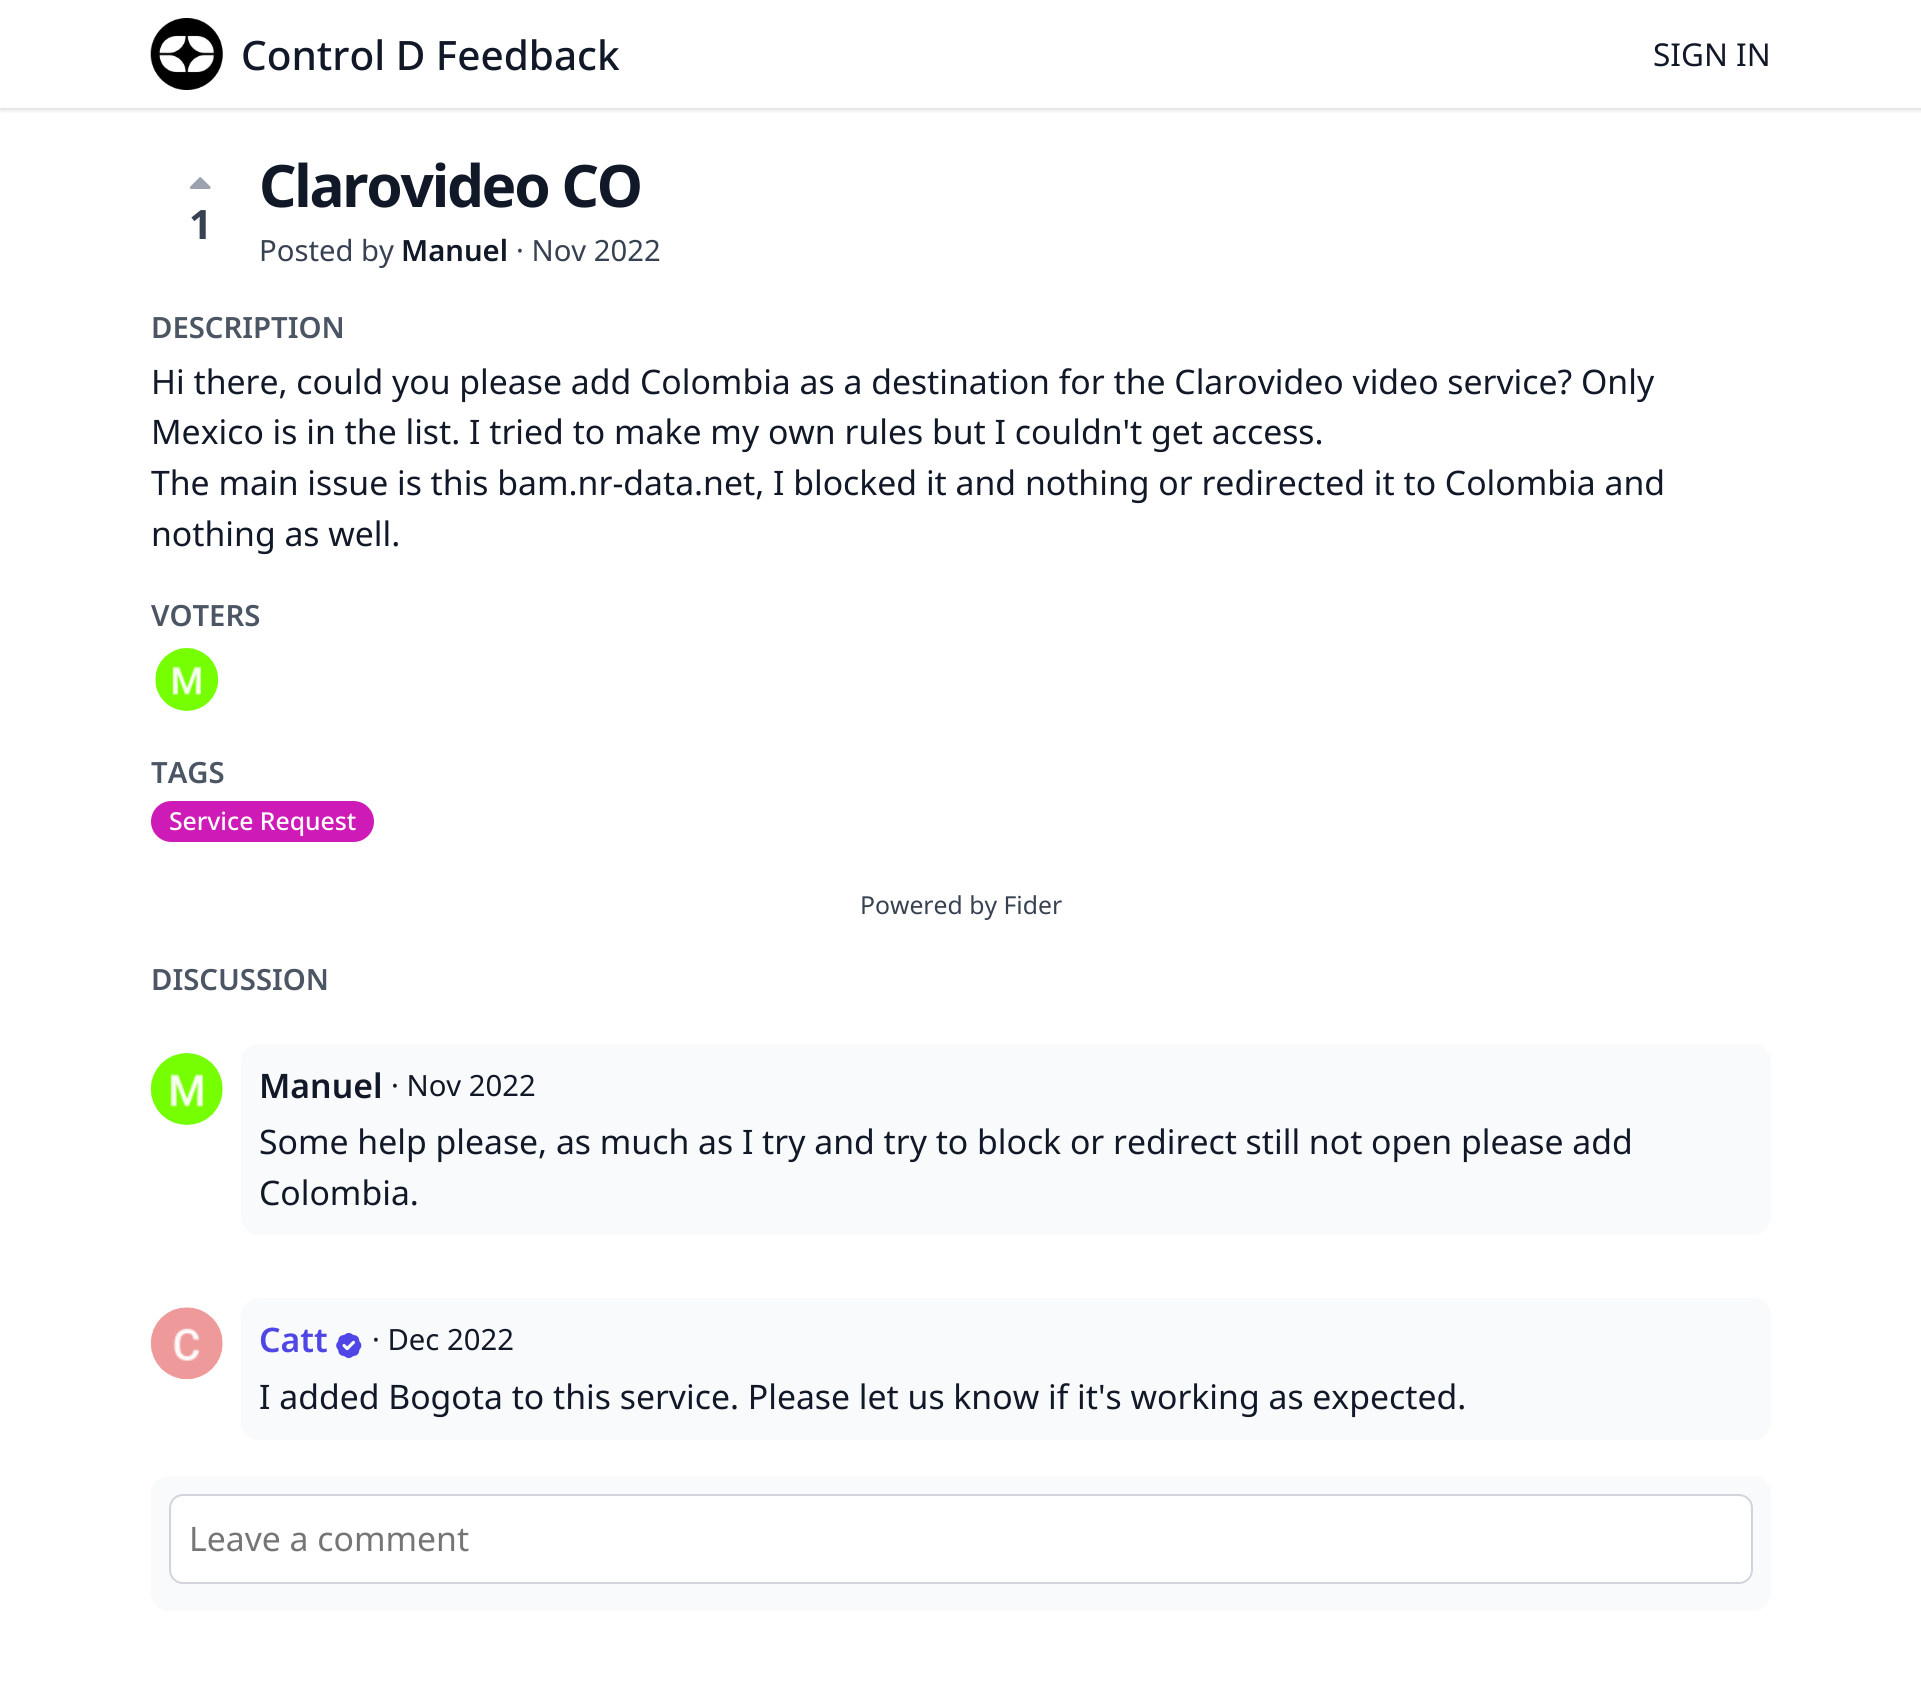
import math
import cairo



def draw_spaced(context, x, y, s, letter, word):
    context.move_to(x, y)
    for ch in s:
        context.show_text(ch)
        context.rel_move_to(letter + word * (ch == ' '), 0)


def rounded_rect(context, x, y, w, h, r):
    context.new_sub_path()
    for i, (u, v) in enumerate([(x + w - r, y + h - r), (x + r, y + h - r), (x + r, y + r), (x + w - r, y + r)]):
        context.arc(u, v, r, i * math.pi / 2, (i + 1) * math.pi / 2)
    context.close_path()


def draw_shadow(context, x, y, w, h, r, blur, alpha):
    context.push_group_with_content(cairo.Content.ALPHA)
    context.set_operator(cairo.Operator.SOURCE)
    for i in range(15, -16, -2):
        e = blur * i / 6
        if min(w, h) + 2 * e > 0:
            context.set_source_rgba(0, 0, 0, alpha * math.erfc((i - 1) / 8.5) / 2)
            rounded_rect(context, x - e, y - e, w + 2 * e, h + 2 * e, max(0, min(r + e + blur * .6, min(w, h) / 2 + e)))
            context.fill()
    context.mask(context.pop_group())


def draw_image(context, path, x, y, w, h):
    context.save()
    context.set_source_surface(cairo.ImageSurface.create_from_png(path), x, y)
    context.rectangle(x, y, w, h)
    context.fill()
    context.restore()


def draw(context):
    context.set_source_rgb(1, 1, 1)
    context.paint()
    context.save()
    context.rectangle(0, 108, 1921, 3)
    context.clip()
    context.set_source_rgb(0, 0, 0)
    draw_shadow(context, 0, 2, 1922, 108, 0, 2, 0.06)
    context.restore()
    context.save()
    context.rectangle(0, 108, 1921, 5)
    context.clip()
    context.set_source_rgb(0, 0, 0)
    draw_shadow(context, 0, 2, 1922, 108, 0, 3.5, 0.1)
    context.restore()
    draw_image(context, "images/1.png", 150, 18, 73, 72)
    draw_image(context, "images/2.png", 189, 177, 22, 12)
    draw_image(context, "images/3.png", 155, 648, 64, 63)
    context.set_source_rgb(206 / 255, 26 / 255, 182 / 255)
    rounded_rect(context, 151, 801, 223, 41, 20.5)
    context.fill()
    draw_image(context, "images/4.png", 150, 1053, 73, 72)
    context.set_source_rgb(249 / 255, 250 / 255, 251 / 255)
    rounded_rect(context, 241, 1044, 1530, 191, 18)
    context.fill()
    draw_image(context, "images/5.png", 150, 1307, 73, 73)
    rounded_rect(context, 241, 1298, 1530, 142, 18)
    context.fill()
    draw_image(context, "images/6.png", 336, 1332, 26, 27)
    rounded_rect(context, 151, 1476, 1620, 135, 18)
    context.fill()
    context.set_source_rgb(1, 1, 1)
    rounded_rect(context, 170, 1495, 1582, 88, 13)
    context.fill_preserve()
    context.set_source_rgb(209 / 255, 213 / 255, 219 / 255)
    context.stroke()
    context.select_font_face("Noto Sans Medium")
    context.set_font_size(40.5)
    context.set_source_rgb(17 / 255, 24 / 255, 39 / 255)
    context.move_to(241, 70)
    context.show_text("Control D Feedback")
    context.select_font_face("Noto Sans")
    context.set_font_size(31.5)
    context.move_to(1653, 66)
    context.show_text("SIGN IN")
    context.select_font_face("Noto Sans", cairo.FontSlant.NORMAL, cairo.FontWeight.BOLD)
    context.set_font_size(40.5)
    context.set_source_rgb(55 / 255, 65 / 255, 81 / 255)
    context.move_to(189, 239)
    context.show_text("1")
    context.set_font_size(58.5)
    context.set_source_rgb(17 / 255, 24 / 255, 39 / 255)
    draw_spaced(context, 259, 207, "Clarovideo CO", -2.25, 0)
    context.select_font_face("Noto Sans")
    context.set_font_size(29.25)
    context.set_source_rgb(55 / 255, 65 / 255, 81 / 255)
    context.move_to(259, 261)
    context.show_text("Posted by")
    context.select_font_face("Noto Sans SemiBold")
    context.set_source_rgb(17 / 255, 24 / 255, 39 / 255)
    context.move_to(401, 261)
    context.show_text("Manuel")
    context.select_font_face("Noto Sans")
    context.set_source_rgb(55 / 255, 65 / 255, 81 / 255)
    context.move_to(516, 261)
    context.show_text("· Nov 2022")
    context.select_font_face("Noto Sans SemiBold")
    context.set_source_rgb(75 / 255, 85 / 255, 99 / 255)
    context.move_to(151, 338)
    context.show_text("DESCRIPTION")
    context.select_font_face("Noto Sans")
    context.set_font_size(33.75)
    context.set_source_rgb(17 / 255, 24 / 255, 39 / 255)
    context.move_to(151, 394)
    context.show_text("Hi there, could you please add Colombia as a destination for the Clarovideo video service? Only")
    context.move_to(151, 444)
    context.show_text("Mexico is in the list. I tried to make my own rules but I couldn't get access.")
    context.move_to(151, 495)
    context.show_text("The main issue is this bam.nr-data.net, I blocked it and nothing or redirected it to Colombia and")
    context.move_to(151, 546)
    context.show_text("nothing as well.")
    context.select_font_face("Noto Sans SemiBold")
    context.set_font_size(29.25)
    context.set_source_rgb(75 / 255, 85 / 255, 99 / 255)
    context.move_to(151, 626)
    context.show_text("VOTERS")
    context.move_to(151, 783)
    context.show_text("TAGS")
    context.select_font_face("Noto Sans Medium")
    context.set_font_size(24.75)
    context.set_source_rgb(1, 1, 1)
    context.move_to(169, 830)
    context.show_text("Service Request")
    context.select_font_face("Noto Sans")
    context.set_source_rgb(55 / 255, 65 / 255, 81 / 255)
    context.move_to(860, 914)
    context.show_text("Powered by Fider")
    context.select_font_face("Noto Sans SemiBold")
    context.set_font_size(29.25)
    context.set_source_rgb(75 / 255, 85 / 255, 99 / 255)
    context.move_to(151, 990)
    context.show_text("DISCUSSION")
    context.set_font_size(33.75)
    context.set_source_rgb(17 / 255, 24 / 255, 39 / 255)
    context.move_to(259, 1098)
    context.show_text("Manuel")
    context.select_font_face("Noto Sans")
    context.set_font_size(29.25)
    context.move_to(391, 1096)
    context.show_text("· Nov 2022")
    context.set_font_size(33.75)
    context.move_to(259, 1154)
    context.show_text("Some help please, as much as I try and try to block or redirect still not open please add")
    context.move_to(259, 1205)
    context.show_text("Colombia.")
    context.select_font_face("Noto Sans SemiBold")
    context.set_source_rgb(79 / 255, 70 / 255, 229 / 255)
    context.move_to(259, 1352)
    context.show_text("Catt")
    context.select_font_face("Noto Sans")
    context.set_font_size(29.25)
    context.set_source_rgb(17 / 255, 24 / 255, 39 / 255)
    context.move_to(372, 1350)
    context.show_text("· Dec 2022")
    context.set_font_size(33.75)
    context.move_to(259, 1409)
    context.show_text("I added Bogota to this service. Please let us know if it's working as expected.")
    context.set_source_rgb(117 / 255, 117 / 255, 117 / 255)
    context.move_to(189, 1551)
    context.show_text("Leave a comment")


surface = cairo.ImageSurface(cairo.Format.RGB24, 1921, 1696)
context = cairo.Context(surface)
options = cairo.FontOptions()
options.set_hint_metrics(cairo.HintMetrics.OFF)
options.set_hint_style(cairo.HintStyle.NONE)
context.set_font_options(options)
context.set_miter_limit(4)
draw(context)
surface.write_to_png("out.png")
